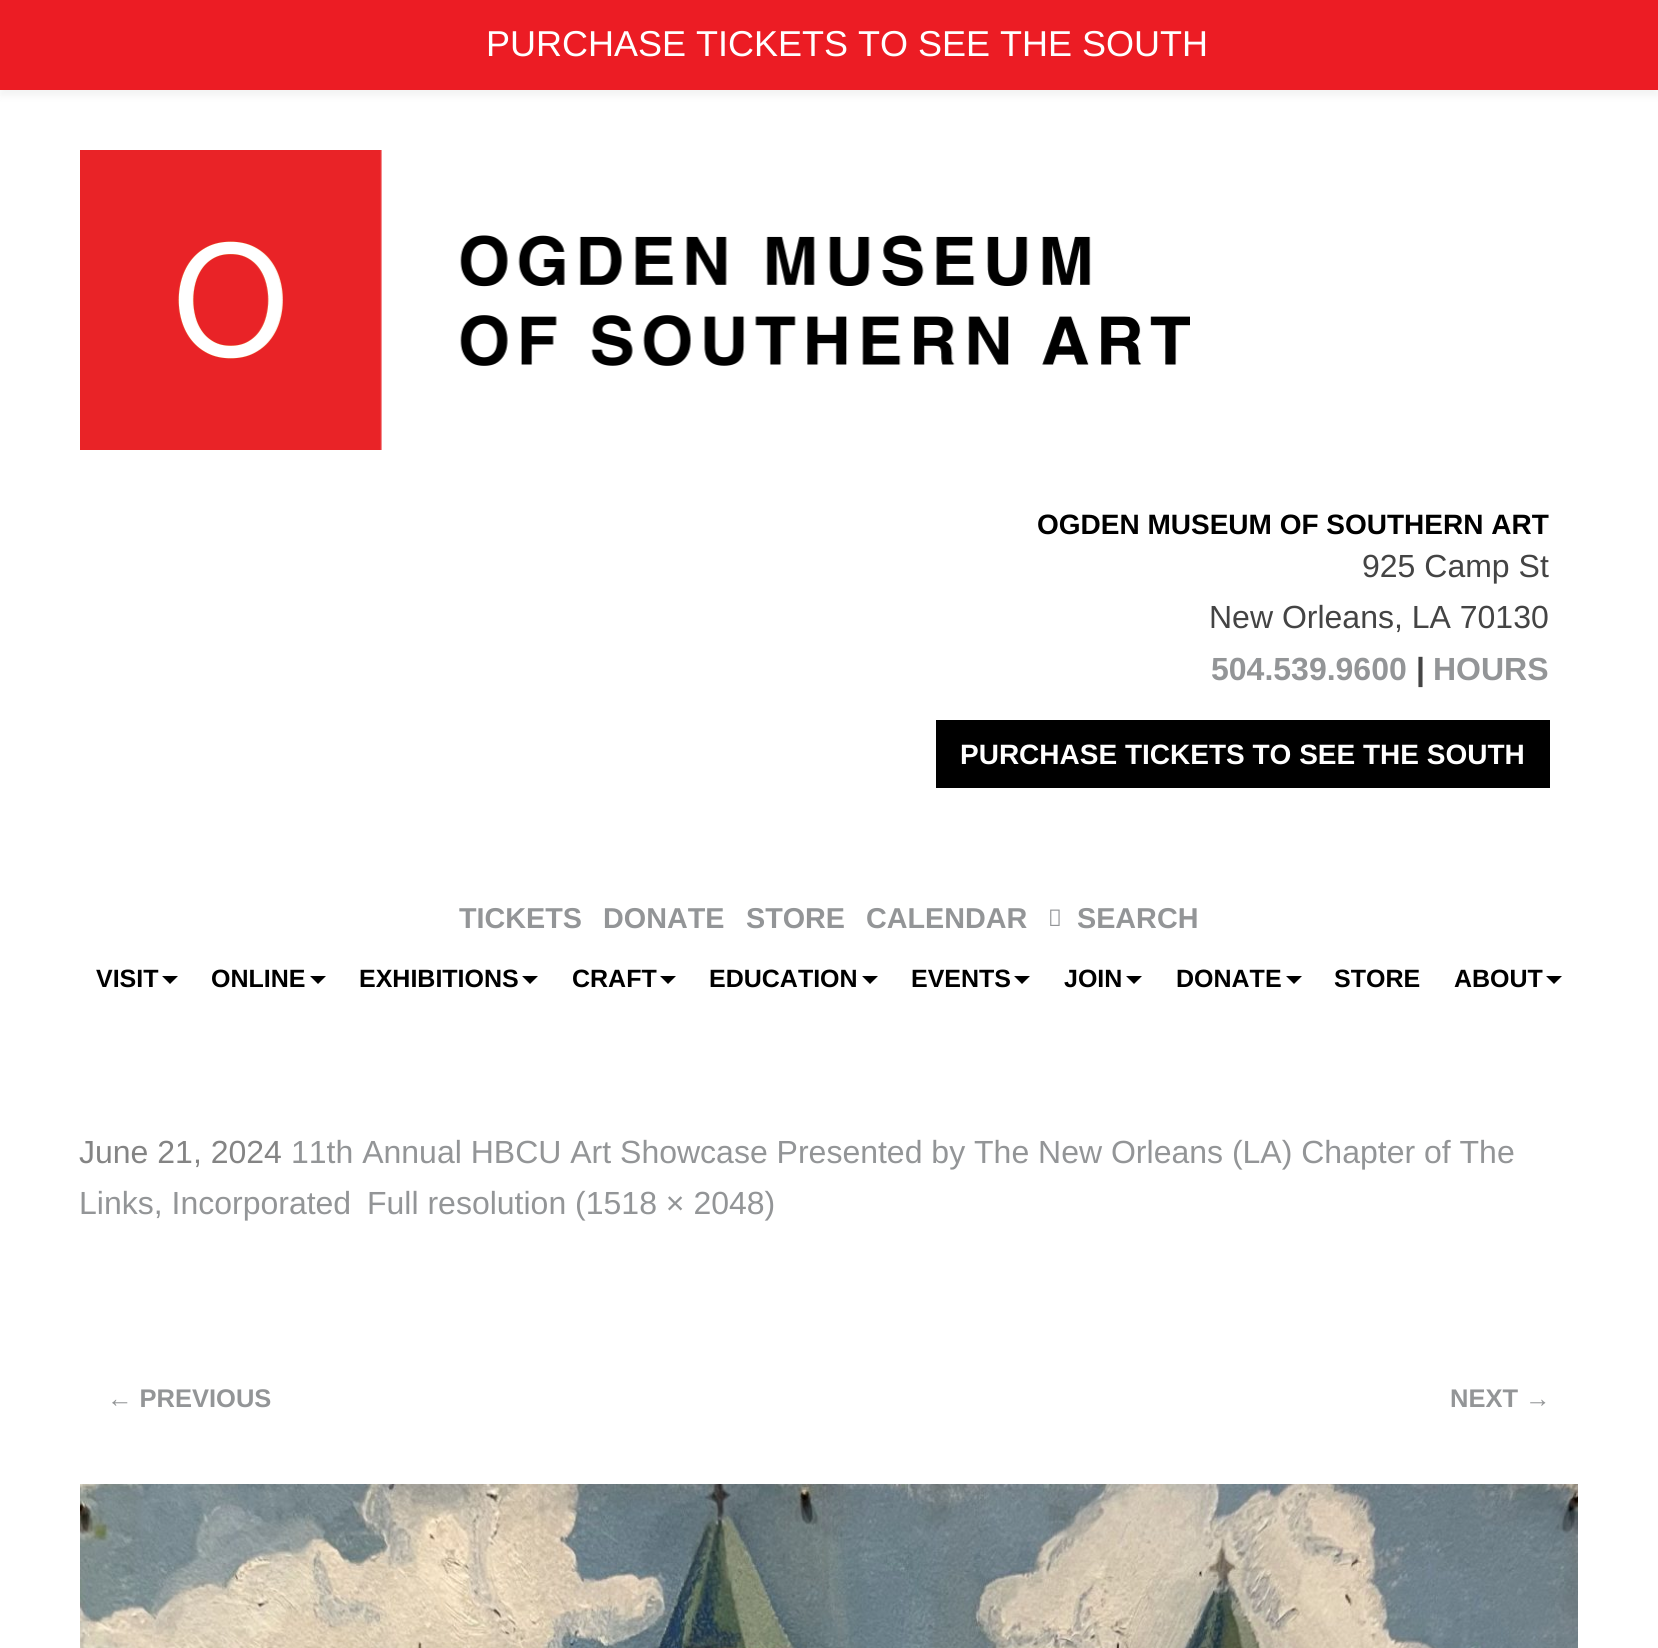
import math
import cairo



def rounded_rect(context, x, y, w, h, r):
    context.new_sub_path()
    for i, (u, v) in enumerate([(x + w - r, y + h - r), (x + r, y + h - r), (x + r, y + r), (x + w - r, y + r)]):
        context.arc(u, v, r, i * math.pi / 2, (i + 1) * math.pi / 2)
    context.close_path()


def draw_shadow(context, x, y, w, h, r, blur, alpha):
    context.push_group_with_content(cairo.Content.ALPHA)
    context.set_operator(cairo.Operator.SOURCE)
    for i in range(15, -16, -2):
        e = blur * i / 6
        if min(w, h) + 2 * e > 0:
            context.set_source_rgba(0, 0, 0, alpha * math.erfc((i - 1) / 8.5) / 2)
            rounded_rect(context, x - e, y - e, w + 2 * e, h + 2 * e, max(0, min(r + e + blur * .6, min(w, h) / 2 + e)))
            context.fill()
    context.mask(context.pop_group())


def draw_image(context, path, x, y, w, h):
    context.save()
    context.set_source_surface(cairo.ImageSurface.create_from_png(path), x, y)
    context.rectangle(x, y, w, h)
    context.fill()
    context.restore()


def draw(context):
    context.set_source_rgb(1, 1, 1)
    context.paint()
    context.set_source_rgb(0, 0, 0)
    draw_shadow(context, 0, 6, 1658, 90, 0, 4, 0.05)
    context.set_source_rgb(236 / 255, 28 / 255, 36 / 255)
    context.rectangle(0, 0, 1658, 90)
    context.fill()
    draw_image(context, "images/1.png", 80, 150, 1110, 300)
    context.set_source_rgb(0, 0, 0)
    context.rectangle(936, 720, 614, 68)
    context.fill()
    draw_image(context, "images/2.png", 1050, 909, 10, 17)
    context.new_path()
    context.move_to(162, 976)
    context.line_to(178, 976)
    context.line_to(170, 984)
    context.close_path()
    context.fill()
    context.new_path()
    context.move_to(310, 976)
    context.line_to(326, 976)
    context.line_to(318, 984)
    context.close_path()
    context.fill()
    context.new_path()
    context.move_to(522, 976)
    context.line_to(538, 976)
    context.line_to(530, 984)
    context.close_path()
    context.fill()
    context.new_path()
    context.move_to(660, 976)
    context.line_to(676, 976)
    context.line_to(668, 984)
    context.close_path()
    context.fill()
    context.new_path()
    context.move_to(862, 976)
    context.line_to(878, 976)
    context.line_to(870, 984)
    context.close_path()
    context.fill()
    context.new_path()
    context.move_to(1014, 976)
    context.line_to(1030, 976)
    context.line_to(1022, 984)
    context.close_path()
    context.fill()
    context.new_path()
    context.move_to(1126, 976)
    context.line_to(1142, 976)
    context.line_to(1134, 984)
    context.close_path()
    context.fill()
    context.new_path()
    context.move_to(1286, 976)
    context.line_to(1302, 976)
    context.line_to(1294, 984)
    context.close_path()
    context.fill()
    context.new_path()
    context.move_to(1546, 976)
    context.line_to(1562, 976)
    context.line_to(1554, 984)
    context.close_path()
    context.fill()
    draw_image(context, "images/3.png", 80, 1484, 1498, 164)
    context.select_font_face("Liberation Sans")
    context.set_font_size(36)
    context.set_source_rgb(1, 1, 1)
    context.move_to(486, 56)
    context.show_text("PURCHASE TICKETS TO SEE THE SOUTH")
    context.select_font_face("Liberation Sans", cairo.FontSlant.NORMAL, cairo.FontWeight.BOLD)
    context.set_font_size(28)
    context.set_source_rgb(0, 0, 0)
    context.move_to(1037, 534)
    context.show_text("OGDEN MUSEUM OF SOUTHERN ART")
    context.select_font_face("Liberation Sans")
    context.set_font_size(32)
    context.set_source_rgb(68 / 255, 68 / 255, 68 / 255)
    context.move_to(1362, 577)
    context.show_text("925 Camp St")
    context.move_to(1209, 628)
    context.show_text("New Orleans, LA 70130")
    context.select_font_face("Liberation Sans", cairo.FontSlant.NORMAL, cairo.FontWeight.BOLD)
    context.set_source_rgb(147 / 255, 149 / 255, 151 / 255)
    context.move_to(1211, 680)
    context.show_text("504.539.9600")
    context.set_source_rgb(68 / 255, 68 / 255, 68 / 255)
    context.move_to(1416, 680)
    context.show_text("|")
    context.set_source_rgb(147 / 255, 149 / 255, 151 / 255)
    context.move_to(1433, 680)
    context.show_text("HOURS")
    context.set_font_size(28)
    context.set_source_rgb(1, 1, 1)
    context.move_to(960, 764)
    context.show_text("PURCHASE TICKETS TO SEE THE SOUTH")
    context.set_font_size(28.75)
    context.set_source_rgb(147 / 255, 149 / 255, 151 / 255)
    context.move_to(459, 928)
    context.show_text("TICKETS")
    context.move_to(603, 928)
    context.show_text("DONATE")
    context.move_to(746, 928)
    context.show_text("STORE")
    context.move_to(866, 928)
    context.show_text("CALENDAR")
    context.move_to(1077, 928)
    context.show_text("SEARCH")
    context.set_font_size(25)
    context.set_source_rgb(0, 0, 0)
    context.move_to(96, 987)
    context.show_text("VISIT")
    context.move_to(211, 987)
    context.show_text("ONLINE")
    context.move_to(359, 987)
    context.show_text("EXHIBITIONS")
    context.move_to(572, 987)
    context.show_text("CRAFT")
    context.move_to(709, 987)
    context.show_text("EDUCATION")
    context.move_to(911, 987)
    context.show_text("EVENTS")
    context.move_to(1064, 987)
    context.show_text("JOIN")
    context.move_to(1176, 987)
    context.show_text("DONATE")
    context.move_to(1334, 987)
    context.show_text("STORE")
    context.move_to(1454, 987)
    context.show_text("ABOUT")
    context.select_font_face("Liberation Sans")
    context.set_font_size(32)
    context.set_source_rgb(132 / 255, 132 / 255, 132 / 255)
    context.move_to(79, 1163)
    context.show_text("June 21, 2024")
    context.set_source_rgb(147 / 255, 149 / 255, 151 / 255)
    context.move_to(291, 1163)
    context.show_text("11th Annual HBCU Art Showcase Presented by The New Orleans (LA) Chapter of The")
    context.move_to(79, 1214)
    context.show_text("Links, Incorporated")
    context.move_to(367, 1214)
    context.show_text("Full resolution (1518 × 2048)")
    context.select_font_face("Liberation Sans", cairo.FontSlant.NORMAL, cairo.FontWeight.BOLD)
    context.set_font_size(25.5)
    context.move_to(107, 1407)
    context.show_text("← PREVIOUS")
    context.move_to(1450, 1407)
    context.show_text("NEXT →")


surface = cairo.ImageSurface(cairo.Format.RGB24, 1658, 1648)
context = cairo.Context(surface)
options = cairo.FontOptions()
options.set_hint_metrics(cairo.HintMetrics.OFF)
options.set_hint_style(cairo.HintStyle.NONE)
context.set_font_options(options)
context.set_miter_limit(4)
draw(context)
surface.write_to_png("out.png")
